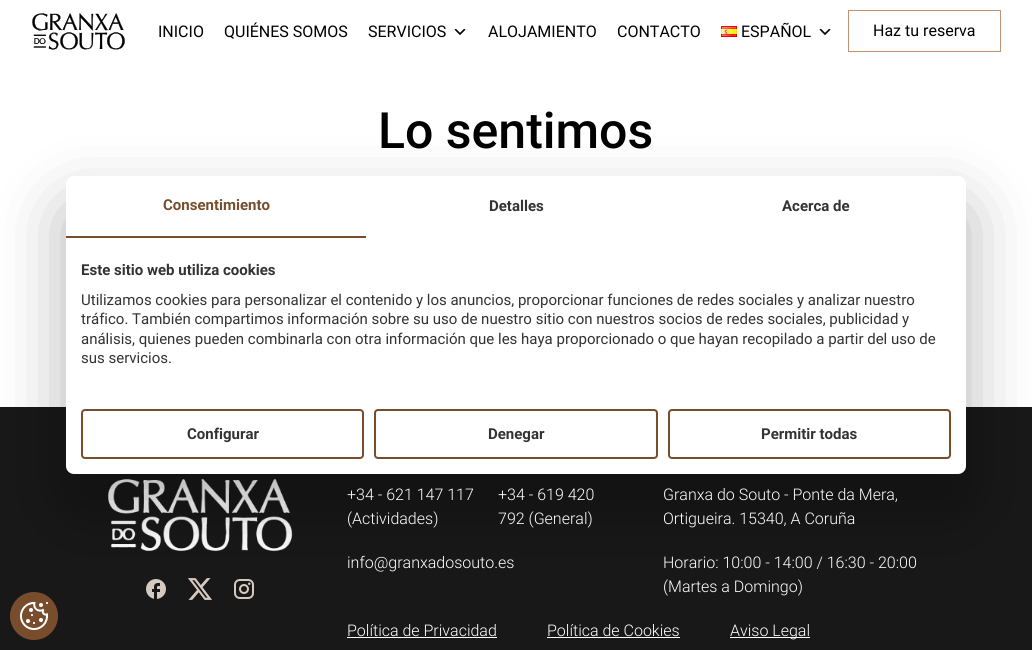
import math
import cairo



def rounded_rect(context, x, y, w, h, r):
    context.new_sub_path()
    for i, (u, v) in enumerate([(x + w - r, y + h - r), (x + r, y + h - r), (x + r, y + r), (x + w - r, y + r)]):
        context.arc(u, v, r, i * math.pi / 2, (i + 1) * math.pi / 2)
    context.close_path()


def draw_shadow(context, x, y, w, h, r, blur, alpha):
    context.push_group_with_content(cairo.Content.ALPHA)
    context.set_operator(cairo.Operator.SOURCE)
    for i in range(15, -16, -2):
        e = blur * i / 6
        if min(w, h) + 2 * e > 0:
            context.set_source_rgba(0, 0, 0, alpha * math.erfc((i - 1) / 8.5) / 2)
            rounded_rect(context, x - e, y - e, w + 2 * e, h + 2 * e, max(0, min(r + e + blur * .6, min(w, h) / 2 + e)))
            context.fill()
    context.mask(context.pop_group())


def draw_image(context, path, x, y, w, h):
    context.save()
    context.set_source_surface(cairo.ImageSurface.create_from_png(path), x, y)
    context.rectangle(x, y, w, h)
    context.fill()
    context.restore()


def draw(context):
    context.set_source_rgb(1, 1, 1)
    context.paint()
    draw_image(context, "images/1.png", 32, 13, 93, 37)
    draw_image(context, "images/2.png", 454, 28, 12, 7)
    draw_image(context, "images/3.png", 721, 26, 16, 11)
    draw_image(context, "images/2.png", 819, 28, 12, 7)
    context.rectangle(848.5, 10.5, 152, 41)
    context.set_source_rgb(188 / 255, 147 / 255, 116 / 255)
    context.set_line_width(1)
    context.stroke()
    context.set_source_rgb(24 / 255, 24 / 255, 24 / 255)
    context.rectangle(0, 407, 1032, 243)
    context.fill()
    draw_image(context, "images/4.png", 108, 479, 185, 73)
    draw_image(context, "images/5.png", 146, 579, 20, 20)
    draw_image(context, "images/6.png", 188, 578, 24, 22)
    draw_image(context, "images/7.png", 234, 579, 20, 20)
    context.set_source_rgb(1, 1, 1)
    context.rectangle(347, 637, 150, 1)
    context.fill()
    context.rectangle(547, 637, 133, 1)
    context.fill()
    context.rectangle(730, 637, 80, 1)
    context.fill()
    context.set_source_rgb(119 / 255, 77 / 255, 45 / 255)
    context.arc(34, 616, 24, 0, 2 * math.pi)
    context.fill()
    draw_image(context, "images/8.png", 20, 602, 28, 28)
    context.set_source_rgb(0, 0, 0)
    draw_shadow(context, 66, 208, 900, 298, 8, 34, 0.3)
    context.set_source_rgb(1, 1, 1)
    rounded_rect(context, 66, 176, 900, 298, 8)
    context.fill()
    context.set_source_rgb(119 / 255, 77 / 255, 45 / 255)
    context.rectangle(66, 236, 300, 2)
    context.fill()
    rounded_rect(context, 82, 410, 281, 48, 3)
    context.set_line_width(2)
    context.stroke()
    rounded_rect(context, 375, 410, 282, 48, 3)
    context.stroke()
    rounded_rect(context, 669, 410, 281, 48, 3)
    context.stroke()
    context.select_font_face("Roboto")
    context.set_font_size(16)
    context.set_source_rgb(0, 0, 0)
    context.move_to(158, 37)
    context.show_text("INICIO")
    context.move_to(224, 37)
    context.show_text("QUIÉNES SOMOS")
    context.move_to(368, 37)
    context.show_text("SERVICIOS")
    context.move_to(488, 37)
    context.show_text("ALOJAMIENTO")
    context.move_to(617, 37)
    context.show_text("CONTACTO")
    context.move_to(741, 37)
    context.show_text("ESPAÑOL")
    context.move_to(873, 36)
    context.show_text("Haz tu reserva")
    context.select_font_face("Roboto Medium")
    context.set_font_size(50)
    context.move_to(378, 148)
    context.show_text("Lo sentimos")
    context.select_font_face("Roboto Light")
    context.set_font_size(16)
    context.set_source_rgb(1, 1, 1)
    context.move_to(347, 500)
    context.show_text("+34 - 621 147 117")
    context.move_to(347, 524)
    context.show_text("(Actividades)")
    context.move_to(498, 500)
    context.show_text("+34 - 619 420")
    context.move_to(498, 524)
    context.show_text("792 (General)")
    context.move_to(347, 568)
    context.show_text("info@granxadosouto.es")
    context.move_to(663, 500)
    context.show_text("Granxa do Souto - Ponte da Mera,")
    context.move_to(663, 524)
    context.show_text("Ortigueira. 15340, A Coruña")
    context.move_to(663, 568)
    context.show_text("Horario: 10:00 - 14:00 / 16:30 - 20:00")
    context.move_to(663, 592)
    context.show_text("(Martes a Domingo)")
    context.move_to(347, 636)
    context.show_text("Política de Privacidad")
    context.move_to(547, 636)
    context.show_text("Política de Cookies")
    context.move_to(730, 636)
    context.show_text("Aviso Legal")
    context.select_font_face("Roboto", cairo.FontSlant.NORMAL, cairo.FontWeight.BOLD)
    context.set_font_size(15)
    context.set_source_rgb(119 / 255, 77 / 255, 45 / 255)
    context.move_to(163, 210)
    context.show_text("Consentimiento")
    context.set_source_rgb(51 / 255, 51 / 255, 51 / 255)
    context.move_to(489, 211)
    context.show_text("Detalles")
    context.move_to(782, 211)
    context.show_text("Acerca de")
    context.move_to(81, 275)
    context.show_text("Este sitio web utiliza cookies")
    context.select_font_face("Roboto")
    context.move_to(81, 305)
    context.show_text("Utilizamos cookies para personalizar el contenido y los anuncios, proporcionar funciones de redes sociales y analizar nuestro")
    context.move_to(81, 324)
    context.show_text("tráfico. También compartimos información sobre su uso de nuestro sitio con nuestros socios de redes sociales, publicidad y")
    context.move_to(81, 344)
    context.show_text("análisis, quienes pueden combinarla con otra información que les haya proporcionado o que hayan recopilado a partir del uso de")
    context.move_to(81, 363)
    context.show_text("sus servicios.")
    context.select_font_face("Roboto", cairo.FontSlant.NORMAL, cairo.FontWeight.BOLD)
    context.move_to(187, 439)
    context.show_text("Configurar")
    context.move_to(488, 439)
    context.show_text("Denegar")
    context.move_to(761, 439)
    context.show_text("Permitir todas")


surface = cairo.ImageSurface(cairo.Format.RGB24, 1032, 650)
context = cairo.Context(surface)
options = cairo.FontOptions()
options.set_hint_metrics(cairo.HintMetrics.OFF)
options.set_hint_style(cairo.HintStyle.NONE)
context.set_font_options(options)
context.set_miter_limit(4)
draw(context)
surface.write_to_png("out.png")
